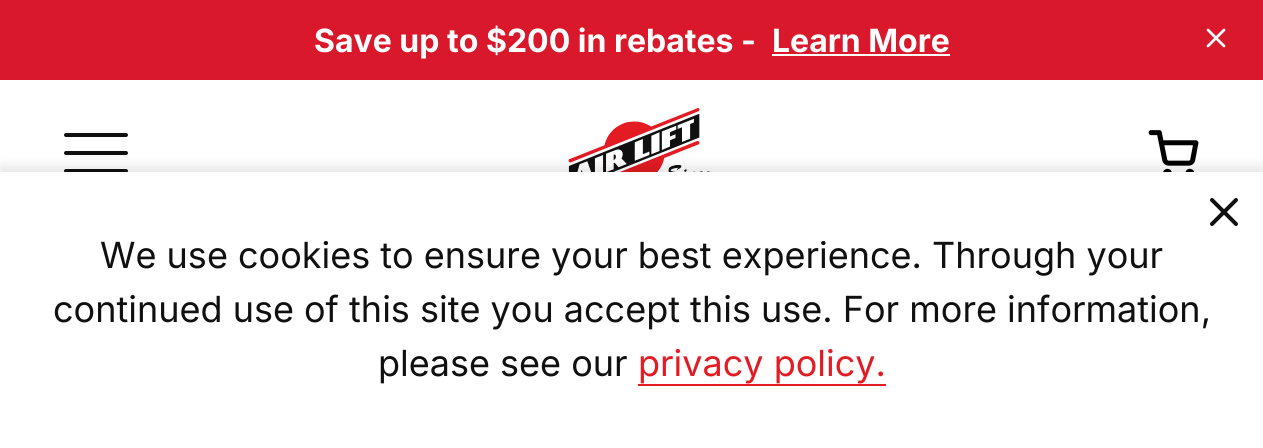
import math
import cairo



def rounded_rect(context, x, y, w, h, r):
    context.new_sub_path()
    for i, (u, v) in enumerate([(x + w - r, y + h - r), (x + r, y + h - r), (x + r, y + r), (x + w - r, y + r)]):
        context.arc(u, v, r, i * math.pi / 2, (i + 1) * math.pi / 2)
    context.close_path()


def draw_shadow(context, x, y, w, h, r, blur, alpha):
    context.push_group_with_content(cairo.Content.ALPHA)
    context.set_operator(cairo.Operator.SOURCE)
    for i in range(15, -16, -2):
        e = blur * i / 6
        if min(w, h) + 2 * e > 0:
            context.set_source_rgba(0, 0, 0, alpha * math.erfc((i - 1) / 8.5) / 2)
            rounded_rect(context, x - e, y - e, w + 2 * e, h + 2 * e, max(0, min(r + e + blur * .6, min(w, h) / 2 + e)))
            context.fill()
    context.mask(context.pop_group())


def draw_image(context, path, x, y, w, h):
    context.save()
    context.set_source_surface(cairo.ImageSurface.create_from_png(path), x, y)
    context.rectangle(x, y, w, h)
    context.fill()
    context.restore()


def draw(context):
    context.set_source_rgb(1, 1, 1)
    context.paint()
    context.set_source_rgb(217 / 255, 24 / 255, 43 / 255)
    context.rectangle(0, 0, 1263, 80)
    context.fill()
    context.set_source_rgb(1, 1, 1)
    context.rectangle(772, 54, 178, 2)
    context.fill()
    draw_image(context, "images/1.png", 1206, 28, 20, 20)
    context.set_source_rgb(16 / 255, 16 / 255, 16 / 255)
    rounded_rect(context, 64, 133, 64, 4, 2)
    context.fill()
    rounded_rect(context, 64, 151, 64, 4, 2)
    context.fill()
    rounded_rect(context, 64, 169, 64, 4, 2)
    context.fill()
    draw_image(context, "images/2.png", 568, 108, 142, 64)
    draw_image(context, "images/3.png", 1148, 130, 51, 42)
    context.set_source_rgb(0, 0, 0)
    draw_shadow(context, 0, 166, 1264, 276, 0, 6, 0.1)
    context.set_source_rgb(1, 1, 1)
    context.rectangle(0, 172, 1263, 276)
    context.fill()
    context.new_path()
    context.move_to(1236, 200)
    context.line_to(1212, 224)
    context.move_to(1212, 200)
    context.line_to(1236, 224)
    context.set_source_rgb(16 / 255, 16 / 255, 16 / 255)
    context.set_line_width(4)
    context.set_line_cap(cairo.LineCap.ROUND)
    context.set_line_join(cairo.LineJoin.ROUND)
    context.stroke()
    context.set_source_rgb(227 / 255, 27 / 255, 35 / 255)
    context.rectangle(638, 384, 248, 2)
    context.fill()
    context.select_font_face("Inter", cairo.FontSlant.NORMAL, cairo.FontWeight.BOLD)
    context.set_font_size(32)
    context.set_source_rgb(1, 1, 1)
    context.move_to(314, 52)
    context.show_text("Save up to $200 in rebates -")
    context.move_to(772, 52)
    context.show_text("Learn More")
    context.select_font_face("Inter")
    context.set_font_size(36)
    context.set_source_rgb(16 / 255, 16 / 255, 16 / 255)
    context.move_to(100, 268)
    context.show_text("We use cookies to ensure your best experience. Through your")
    context.move_to(53, 322)
    context.show_text("continued use of this site you accept this use. For more information,")
    context.move_to(378, 376)
    context.show_text("please see our")
    context.set_source_rgb(227 / 255, 27 / 255, 35 / 255)
    context.move_to(638, 376)
    context.show_text("privacy policy.")


surface = cairo.ImageSurface(cairo.Format.RGB24, 1263, 448)
context = cairo.Context(surface)
options = cairo.FontOptions()
options.set_hint_metrics(cairo.HintMetrics.OFF)
options.set_hint_style(cairo.HintStyle.NONE)
context.set_font_options(options)
context.set_miter_limit(4)
draw(context)
surface.write_to_png("out.png")
